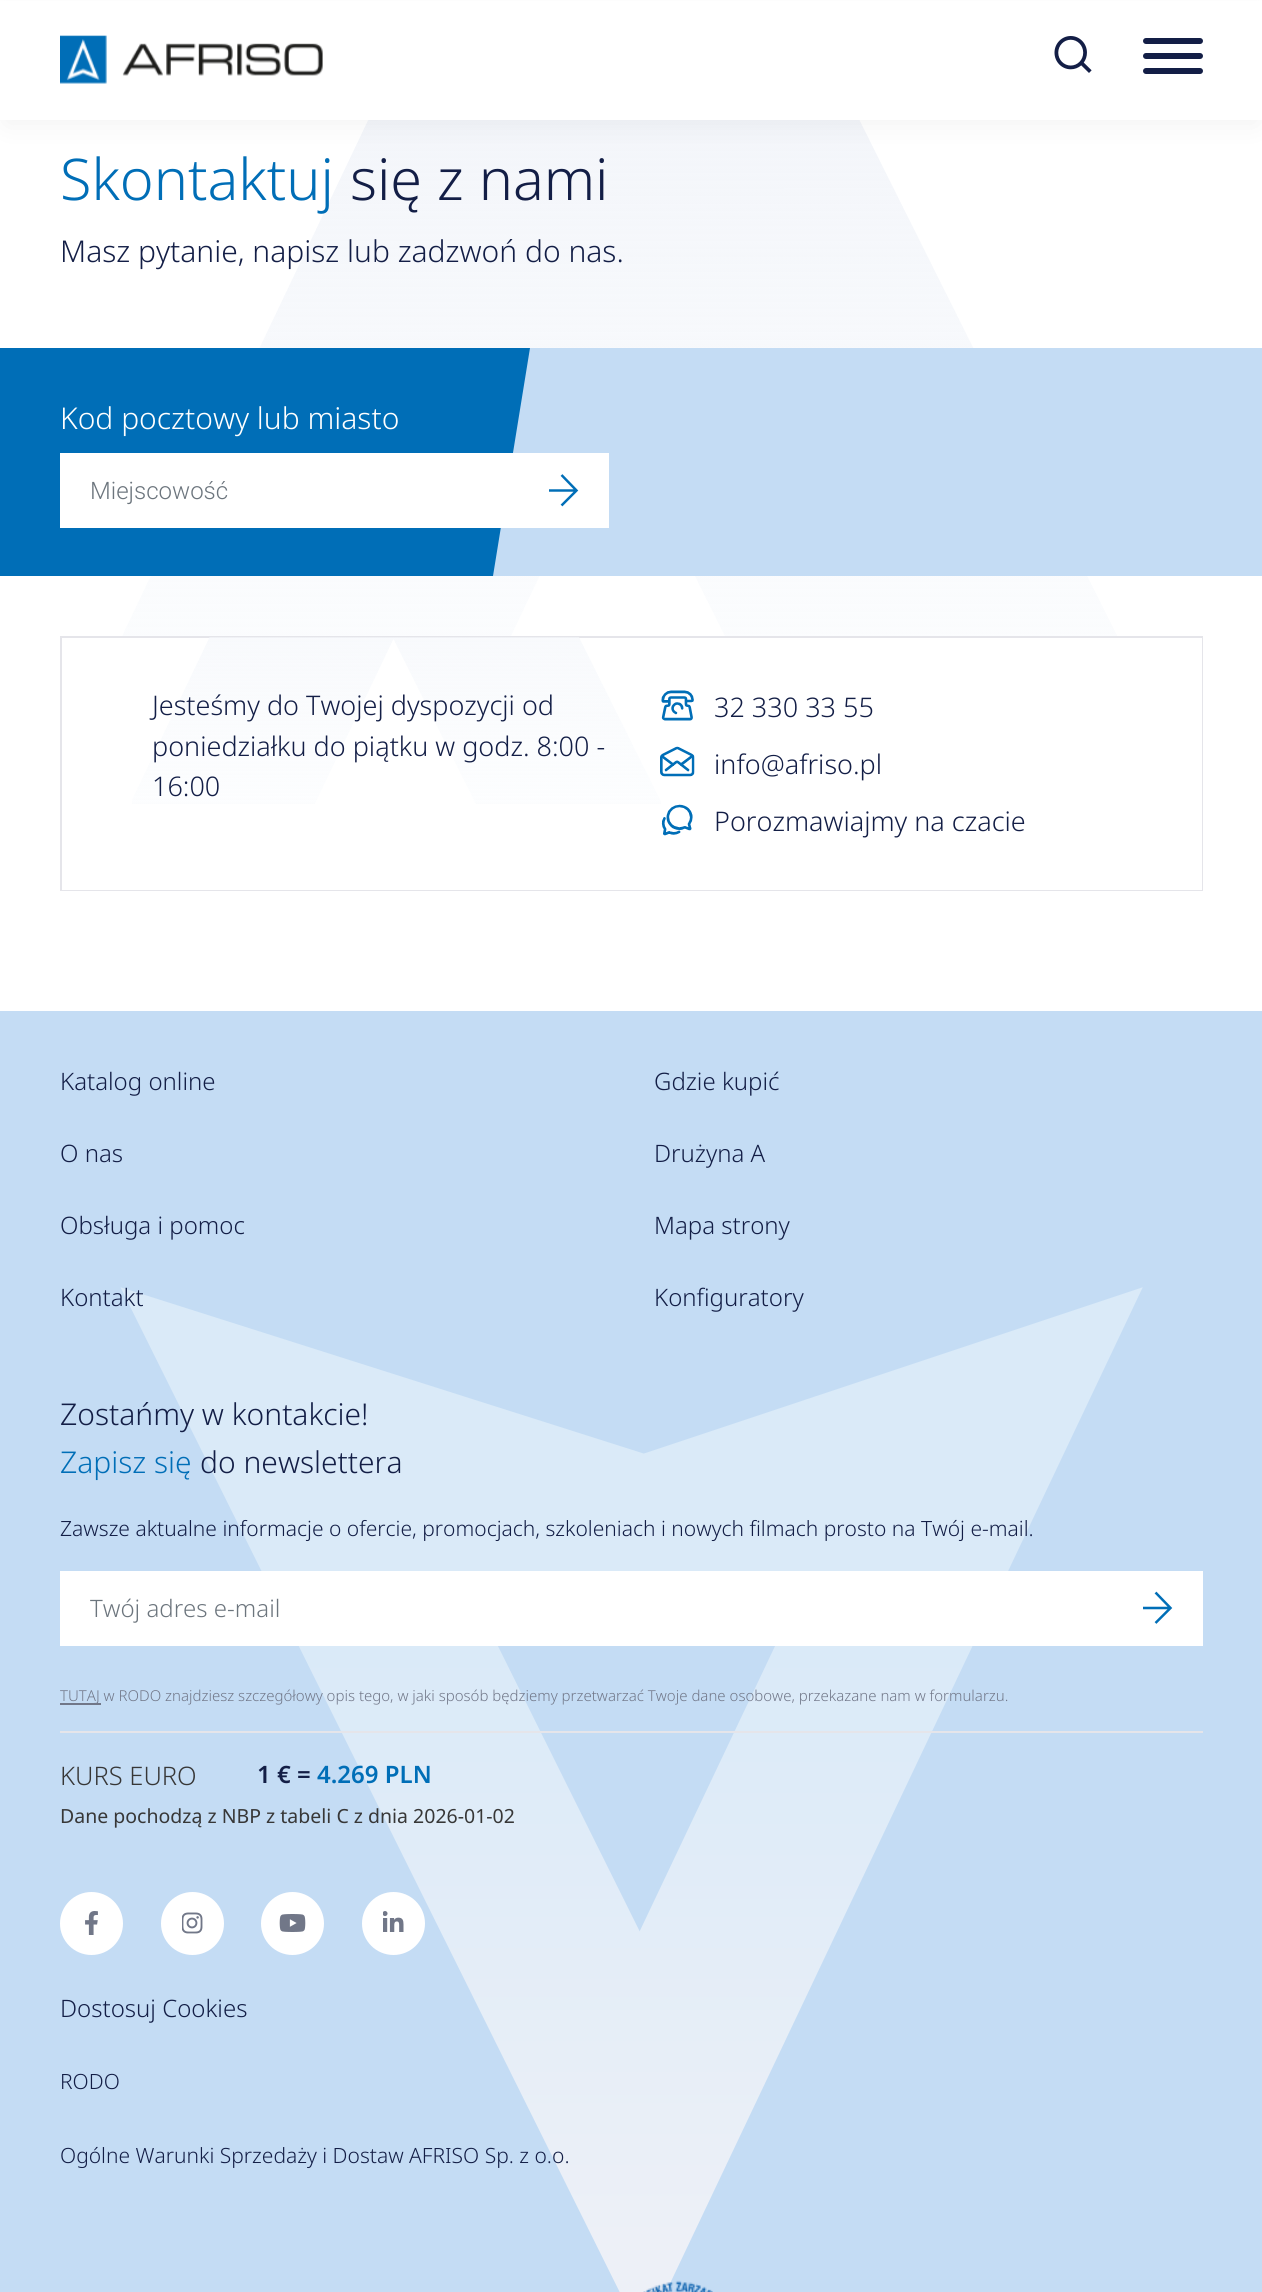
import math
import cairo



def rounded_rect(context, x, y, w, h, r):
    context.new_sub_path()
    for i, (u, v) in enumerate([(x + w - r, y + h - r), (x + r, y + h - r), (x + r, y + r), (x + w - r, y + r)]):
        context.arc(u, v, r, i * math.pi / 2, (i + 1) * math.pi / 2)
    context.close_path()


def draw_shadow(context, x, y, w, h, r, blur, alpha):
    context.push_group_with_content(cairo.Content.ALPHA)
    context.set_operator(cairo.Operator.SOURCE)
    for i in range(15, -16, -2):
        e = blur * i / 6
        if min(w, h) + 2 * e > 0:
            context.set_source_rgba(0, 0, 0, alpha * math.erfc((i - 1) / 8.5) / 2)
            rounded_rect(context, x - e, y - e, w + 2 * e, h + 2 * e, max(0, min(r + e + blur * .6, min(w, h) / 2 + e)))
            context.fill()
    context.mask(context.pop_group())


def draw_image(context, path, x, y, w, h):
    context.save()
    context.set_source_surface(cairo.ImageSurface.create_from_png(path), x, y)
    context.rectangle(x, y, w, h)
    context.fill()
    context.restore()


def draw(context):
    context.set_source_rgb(1, 1, 1)
    context.paint()
    draw_image(context, "images/3.png", 122, 120, 996, 516)
    context.set_source_rgb(0, 0, 0)
    draw_shadow(context, 6, 15, 1251, 108, 0, 14, 0.06)
    context.set_source_rgb(1, 1, 1)
    context.rectangle(0, 1, 1262, 119)
    context.fill()
    draw_image(context, "images/1.png", 60, 35, 263, 49)
    draw_image(context, "images/2.png", 1054, 36, 38, 37)
    context.set_source_rgb(19 / 255, 30 / 255, 70 / 255)
    rounded_rect(context, 1143, 38, 60, 6, 3)
    context.fill()
    rounded_rect(context, 1143, 53, 60, 6, 3)
    context.fill()
    rounded_rect(context, 1143, 68, 60, 6, 3)
    context.fill()
    context.set_source_rgb(196 / 255, 220 / 255, 244 / 255)
    context.rectangle(493, 348, 769, 228)
    context.fill()
    context.set_source_rgb(0, 110 / 255, 183 / 255)
    context.new_path()
    context.move_to(0, 348)
    context.line_to(0, 576)
    context.line_to(493, 576)
    context.line_to(530, 348)
    context.close_path()
    context.fill()
    context.set_source_rgb(1, 1, 1)
    context.rectangle(60, 453, 549, 75)
    context.fill()
    context.new_path()
    context.move_to(549, 490.5)
    context.line_to(575.5, 490.5)
    context.move_to(561.5, 475)
    context.line_to(576.5, 490.5)
    context.line_to(561.5, 505.5)
    context.set_source_rgb(0, 110 / 255, 183 / 255)
    context.set_line_width(2.5)
    context.stroke()
    context.rectangle(61, 637, 1141, 253)
    context.set_source_rgb(229 / 255, 229 / 255, 234 / 255)
    context.set_line_width(2)
    context.stroke()
    context.set_source_rgb(1, 1, 1)
    context.rectangle(62, 638, 1140, 252)
    context.fill()
    draw_image(context, "images/4.png", 132, 637, 529, 167)
    draw_image(context, "images/5.png", 661, 690, 33, 31)
    draw_image(context, "images/6.png", 660, 746, 35, 31)
    draw_image(context, "images/7.png", 661, 804, 32, 32)
    context.set_source_rgb(196 / 255, 220 / 255, 244 / 255)
    context.rectangle(0, 1011, 1262, 1281)
    context.fill()
    context.new_path()
    context.move_to(616.5, 1538.5)
    context.line_to(644, 1547.5)
    context.line_to(972.5, 1438)
    context.line_to(641.5, 2135.5)
    context.line_to(294, 1436)
    context.close_path()
    gradient = cairo.LinearGradient(632, 2243, 632, 1647)
    gradient.add_color_stop_rgba(0, 237 / 255, 240 / 255, 247 / 255, 1)
    gradient.add_color_stop_rgba(0.99, 218 / 255, 234 / 255, 248 / 255, 1)
    context.set_source(gradient)
    context.set_line_width(178.4)
    context.stroke()
    context.set_source_rgb(1, 1, 1)
    context.rectangle(60, 1571, 1143, 75)
    context.fill()
    context.new_path()
    context.move_to(1143, 1608)
    context.line_to(1169.5, 1608)
    context.move_to(1155.5, 1592.5)
    context.line_to(1170.5, 1608)
    context.line_to(1155.5, 1623)
    context.set_source_rgb(0, 110 / 255, 183 / 255)
    context.set_line_width(2.5)
    context.stroke()
    context.set_source_rgb(113 / 255, 119 / 255, 136 / 255)
    context.rectangle(60, 1703, 41, 2)
    context.fill()
    context.set_source_rgb(229 / 255, 229 / 255, 234 / 255)
    context.rectangle(60, 1731, 1143, 2)
    context.fill()
    context.set_source_rgb(1, 1, 1)
    context.arc(91.5, 1923.5, 31.5, 0, 2 * math.pi)
    context.fill()
    draw_image(context, "images/8.png", 85, 1911, 13, 24)
    context.arc(192.5, 1923.5, 31.5, 0, 2 * math.pi)
    context.fill()
    draw_image(context, "images/9.png", 182, 1912, 21, 22)
    context.arc(292.5, 1923.5, 31.5, 0, 2 * math.pi)
    context.fill()
    draw_image(context, "images/10.png", 279, 1914, 27, 18)
    context.arc(393.5, 1923.5, 31.5, 0, 2 * math.pi)
    context.fill()
    draw_image(context, "images/11.png", 383, 1911, 21, 21)
    draw_image(context, "images/12.png", 643, 2280, 70, 12)
    context.select_font_face("Noto Sans Light")
    context.set_font_size(57.5)
    context.set_source_rgb(0, 110 / 255, 183 / 255)
    context.move_to(60, 200)
    context.show_text("Skontaktuj")
    context.set_source_rgb(19 / 255, 30 / 255, 70 / 255)
    context.move_to(350, 200)
    context.show_text("się z nami")
    context.set_font_size(30)
    context.move_to(60, 262)
    context.show_text("Masz pytanie, napisz lub zadzwoń do nas.")
    context.set_source_rgb(1, 1, 1)
    context.move_to(60, 429)
    context.show_text("Kod pocztowy lub miasto")
    context.select_font_face("Roboto Light")
    context.set_font_size(24)
    context.set_source_rgb(108 / 255, 117 / 255, 125 / 255)
    context.move_to(90, 499)
    context.show_text("Miejscowość")
    context.select_font_face("Noto Sans Light")
    context.set_font_size(27)
    context.set_source_rgb(19 / 255, 30 / 255, 70 / 255)
    context.move_to(152, 715)
    context.show_text("Jesteśmy do Twojej dyspozycji od")
    context.move_to(152, 756)
    context.show_text("poniedziałku do piątku w godz. 8:00 -")
    context.move_to(152, 796)
    context.show_text("16:00")
    context.move_to(714, 717)
    context.show_text("32 330 33 55")
    context.move_to(714, 774)
    context.show_text("info@afriso.pl")
    context.move_to(714, 831)
    context.show_text("Porozmawiajmy na czacie")
    context.set_font_size(24)
    context.move_to(60, 1090)
    context.show_text("Katalog online")
    context.move_to(60, 1162)
    context.show_text("O nas")
    context.move_to(60, 1234)
    context.show_text("Obsługa i pomoc")
    context.move_to(60, 1306)
    context.show_text("Kontakt")
    context.move_to(654, 1090)
    context.show_text("Gdzie kupić")
    context.move_to(654, 1162)
    context.show_text("Drużyna A")
    context.move_to(654, 1234)
    context.show_text("Mapa strony")
    context.move_to(654, 1306)
    context.show_text("Konfiguratory")
    context.set_font_size(30)
    context.move_to(60, 1425)
    context.show_text("Zostańmy w kontakcie!")
    context.set_source_rgb(0, 110 / 255, 183 / 255)
    context.move_to(60, 1473)
    context.show_text("Zapisz się")
    context.set_source_rgb(19 / 255, 30 / 255, 70 / 255)
    context.move_to(200, 1473)
    context.show_text("do newslettera")
    context.set_font_size(21)
    context.move_to(60, 1536)
    context.show_text("Zawsze aktualne informacje o ofercie, promocjach, szkoleniach i nowych filmach prosto na Twój e-mail.")
    context.set_font_size(24)
    context.set_source_rgb(108 / 255, 117 / 255, 125 / 255)
    context.move_to(90, 1617)
    context.show_text("Twój adres e-mail")
    context.set_font_size(15)
    context.set_source_rgb(113 / 255, 119 / 255, 136 / 255)
    context.move_to(60, 1701)
    context.show_text("TUTAJ w RODO znajdziesz szczegółowy opis tego, w jaki sposób będziemy przetwarzać Twoje dane osobowe, przekazane nam w formularzu.")
    context.set_font_size(25.5)
    context.set_source_rgb(55 / 255, 55 / 255, 55 / 255)
    context.move_to(60, 1785)
    context.show_text("KURS EURO")
    context.select_font_face("Noto Sans SemiBold")
    context.set_font_size(24)
    context.set_source_rgb(19 / 255, 30 / 255, 70 / 255)
    context.move_to(257, 1783)
    context.show_text("1 € =")
    context.set_source_rgb(0, 110 / 255, 183 / 255)
    context.move_to(317, 1783)
    context.show_text("4.269 PLN")
    context.select_font_face("Noto Sans")
    context.set_font_size(19.5)
    context.set_source_rgb(55 / 255, 55 / 255, 55 / 255)
    context.move_to(60, 1823)
    context.show_text("Dane pochodzą z NBP z tabeli C z dnia 2026-01-02")
    context.select_font_face("Noto Sans Light")
    context.set_font_size(24)
    context.set_source_rgb(19 / 255, 30 / 255, 70 / 255)
    context.move_to(60, 2017)
    context.show_text("Dostosuj Cookies")
    context.set_font_size(21)
    context.move_to(60, 2089)
    context.show_text("RODO")
    context.move_to(60, 2163)
    context.show_text("Ogólne Warunki Sprzedaży i Dostaw AFRISO Sp. z o.o.")


surface = cairo.ImageSurface(cairo.Format.RGB24, 1262, 2292)
context = cairo.Context(surface)
options = cairo.FontOptions()
options.set_hint_metrics(cairo.HintMetrics.OFF)
options.set_hint_style(cairo.HintStyle.NONE)
context.set_font_options(options)
context.set_miter_limit(4)
draw(context)
surface.write_to_png("out.png")
